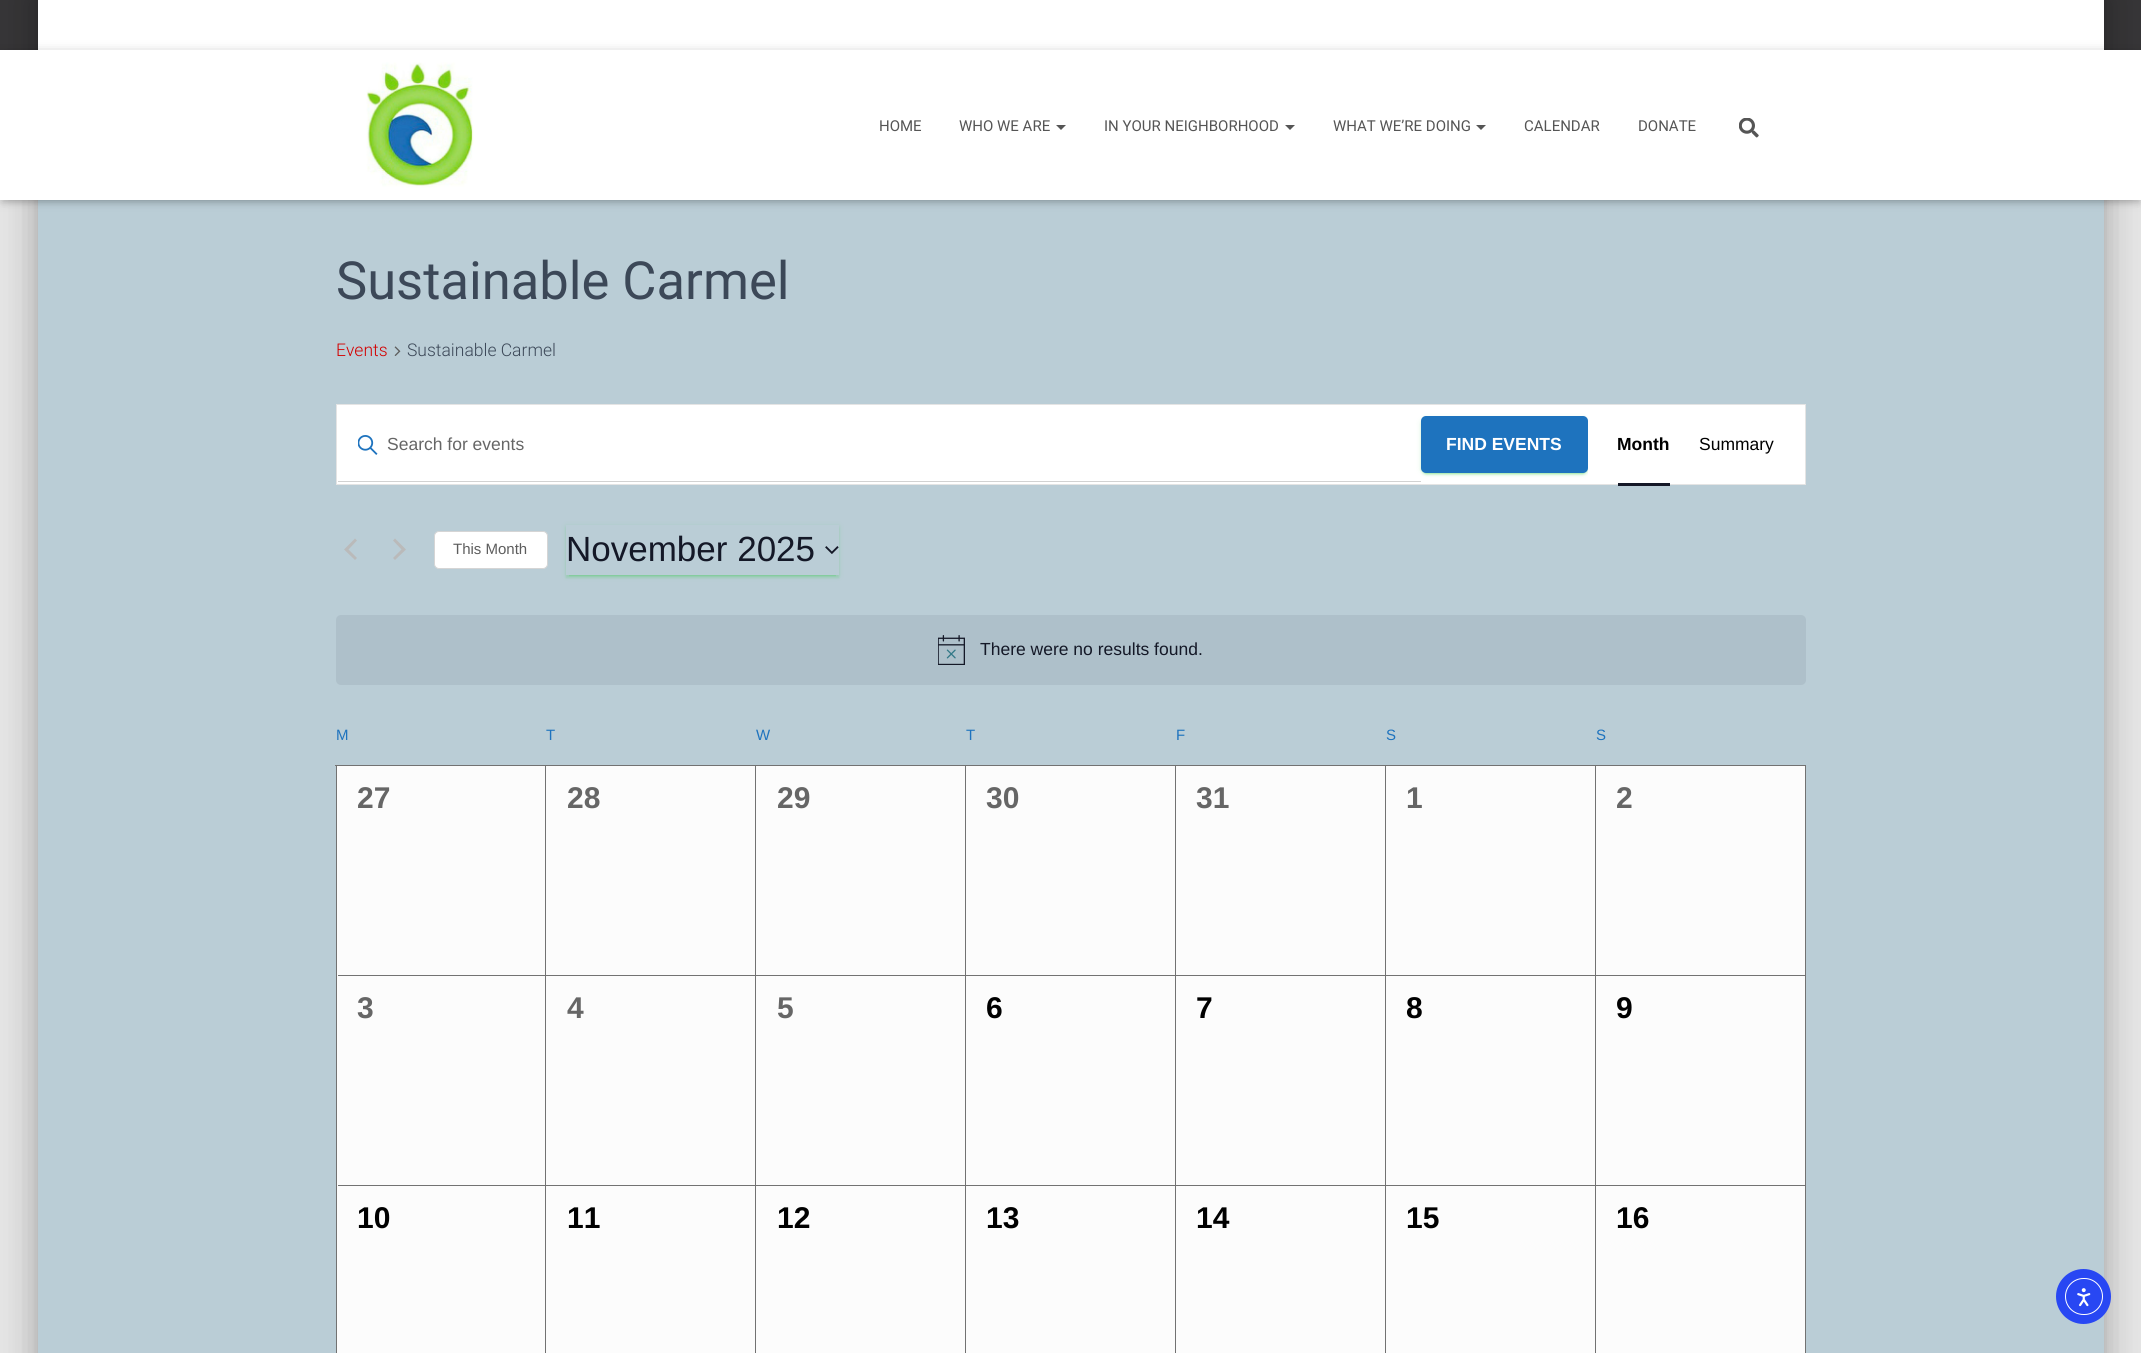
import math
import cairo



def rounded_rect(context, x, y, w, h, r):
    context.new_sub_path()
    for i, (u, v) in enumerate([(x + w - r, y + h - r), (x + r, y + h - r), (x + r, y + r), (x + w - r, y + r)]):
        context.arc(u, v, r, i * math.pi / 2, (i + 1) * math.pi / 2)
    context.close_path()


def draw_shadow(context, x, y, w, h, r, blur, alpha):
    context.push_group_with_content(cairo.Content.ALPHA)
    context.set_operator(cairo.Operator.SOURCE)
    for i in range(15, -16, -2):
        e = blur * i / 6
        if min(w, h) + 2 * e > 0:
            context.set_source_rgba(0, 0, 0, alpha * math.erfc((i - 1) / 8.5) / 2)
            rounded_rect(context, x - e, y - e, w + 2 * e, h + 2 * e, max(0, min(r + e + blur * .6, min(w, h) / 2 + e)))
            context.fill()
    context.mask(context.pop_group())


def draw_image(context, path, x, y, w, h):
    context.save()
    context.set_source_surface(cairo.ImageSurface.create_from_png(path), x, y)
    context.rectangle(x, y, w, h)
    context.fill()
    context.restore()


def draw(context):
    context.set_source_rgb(229 / 255, 229 / 255, 229 / 255)
    context.paint()
    context.set_source_rgb(54 / 255, 53 / 255, 55 / 255)
    context.rectangle(0, 0, 2141, 50)
    context.fill()
    context.set_source_rgb(0, 0, 0)
    draw_shadow(context, 44, -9, 2054, 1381, 1, 6, 0.2)
    draw_shadow(context, 31, -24, 2079, 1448, 14, 19, 0.12)
    draw_shadow(context, 35, -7, 2071, 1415, 10, 15, 0.14)
    context.set_source_rgb(1, 1, 1)
    context.rectangle(38, 0, 2066, 50)
    context.fill()
    context.set_source_rgb(186 / 255, 205 / 255, 214 / 255)
    context.rectangle(38, 200, 2066, 1153)
    context.fill()
    context.set_source_rgb(0, 0, 0)
    draw_shadow(context, 3, 58, 2136, 145, 0, 3, 0.1)
    draw_shadow(context, 0, 51, 2141, 150, 0, 6, 0.12)
    draw_shadow(context, 8, 59, 2126, 135, 0, 6, 0.42)
    context.set_source_rgb(1, 1, 1)
    context.rectangle(0, 50, 2141, 150)
    context.fill()
    draw_image(context, "images/1.png", 366, 62, 108, 126)
    context.set_source_rgb(85 / 255, 85 / 255, 85 / 255)
    context.new_path()
    context.move_to(1056, 125)
    context.line_to(1066, 125)
    context.line_to(1061, 130)
    context.close_path()
    context.fill()
    context.new_path()
    context.move_to(1285, 125)
    context.line_to(1295, 125)
    context.line_to(1290, 130)
    context.close_path()
    context.fill()
    context.new_path()
    context.move_to(1476, 125)
    context.line_to(1486, 125)
    context.line_to(1481, 130)
    context.close_path()
    context.fill()
    draw_image(context, "images/2.png", 1739, 118, 20, 20)
    draw_image(context, "images/3.png", 394, 346, 7, 10)
    context.set_source_rgb(1, 1, 1)
    context.rectangle(337, 405, 1251, 79)
    context.fill()
    context.rectangle(336.5, 404.5, 1469, 80)
    context.set_source_rgb(228 / 255, 228 / 255, 228 / 255)
    context.set_line_width(1)
    context.stroke()
    draw_image(context, "images/4.png", 358, 435, 20, 20)
    context.set_source_rgb(210 / 255, 210 / 255, 210 / 255)
    context.rectangle(338, 481, 1083, 1)
    context.fill()
    context.set_source_rgb(26 / 255, 201 / 255, 46 / 255)
    draw_shadow(context, 1421, 418, 167, 56, 5, 3, 0.12)
    draw_shadow(context, 1424, 423, 161, 51, 2.5, 0.5, 0.2)
    draw_shadow(context, 1421, 419, 167, 56, 5, 1, 0.14)
    context.set_source_rgb(30 / 255, 115 / 255, 190 / 255)
    rounded_rect(context, 1421, 416, 167, 57, 5)
    context.fill()
    context.set_source_rgb(1, 1, 1)
    context.rectangle(1588, 405, 217, 79)
    context.fill()
    context.set_source_rgb(20 / 255, 24 / 255, 39 / 255)
    context.rectangle(1618, 483, 52, 3)
    context.fill()
    context.set_source_rgb(186 / 255, 186 / 255, 186 / 255)
    context.new_path()
    context.move_to(357, 558)
    context.line_to(355, 560)
    context.line_to(344, 549.5)
    context.line_to(355, 538.5)
    context.line_to(357, 540.5)
    context.line_to(348.5, 549.5)
    context.close_path()
    context.move_to(393, 540.5)
    context.line_to(395, 538.5)
    context.line_to(406, 549.5)
    context.line_to(395, 560)
    context.line_to(393, 558)
    context.line_to(401.5, 549.5)
    context.close_path()
    context.fill()
    context.set_source_rgb(1, 1, 1)
    rounded_rect(context, 434.5, 531.5, 113, 37, 4.5)
    context.fill_preserve()
    context.set_source_rgb(213 / 255, 213 / 255, 213 / 255)
    context.stroke()
    context.save()
    context.set_fill_rule(cairo.FillRule.EVEN_ODD)
    context.new_path()
    context.move_to(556, 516)
    context.line_to(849, 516)
    context.line_to(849, 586)
    context.line_to(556, 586)
    context.close_path()
    context.move_to(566, 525)
    context.line_to(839, 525)
    context.line_to(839, 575)
    context.line_to(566, 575)
    context.close_path()
    context.clip()
    context.set_source_rgb(26 / 255, 201 / 255, 46 / 255)
    draw_shadow(context, 566, 526, 273, 50, 0, 3, 0.12)
    context.restore()
    context.save()
    context.rectangle(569, 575, 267, 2)
    context.clip()
    context.set_source_rgb(26 / 255, 201 / 255, 46 / 255)
    draw_shadow(context, 569, 531, 267, 45, 0, 0.5, 0.2)
    context.restore()
    context.save()
    context.set_fill_rule(cairo.FillRule.EVEN_ODD)
    context.new_path()
    context.move_to(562, 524)
    context.line_to(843, 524)
    context.line_to(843, 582)
    context.line_to(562, 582)
    context.close_path()
    context.move_to(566, 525)
    context.line_to(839, 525)
    context.line_to(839, 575)
    context.line_to(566, 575)
    context.close_path()
    context.clip()
    context.set_source_rgb(26 / 255, 201 / 255, 46 / 255)
    draw_shadow(context, 566, 528, 273, 50, 0, 1, 0.14)
    context.restore()
    draw_image(context, "images/5.png", 825, 546, 14, 8)
    context.set_source_rgb(174 / 255, 192 / 255, 202 / 255)
    rounded_rect(context, 336, 615, 1470, 70, 5)
    context.fill()
    draw_image(context, "images/6.png", 938, 635, 27, 30)
    context.set_source_rgb(252 / 255, 252 / 255, 252 / 255)
    context.rectangle(337, 766, 1468, 587)
    context.fill()
    context.set_source_rgb(114 / 255, 114 / 255, 114 / 255)
    context.rectangle(335, 765, 1471, 1)
    context.fill()
    context.rectangle(336, 766, 1, 587)
    context.fill()
    context.rectangle(545, 766, 1, 587)
    context.fill()
    context.rectangle(338, 975, 208, 1)
    context.fill()
    context.rectangle(755, 766, 1, 587)
    context.fill()
    context.rectangle(546, 975, 210, 1)
    context.fill()
    context.rectangle(965, 766, 1, 587)
    context.fill()
    context.rectangle(756, 975, 210, 1)
    context.fill()
    context.rectangle(1175, 766, 1, 587)
    context.fill()
    context.rectangle(966, 975, 210, 1)
    context.fill()
    context.rectangle(1385, 766, 1, 587)
    context.fill()
    context.rectangle(1176, 975, 210, 1)
    context.fill()
    context.rectangle(1595, 766, 1, 587)
    context.fill()
    context.rectangle(1386, 975, 210, 1)
    context.fill()
    context.rectangle(1805, 766, 1, 587)
    context.fill()
    context.rectangle(1596, 975, 210, 1)
    context.fill()
    context.rectangle(338, 1185, 1468, 1)
    context.fill()
    context.set_source_rgb(40 / 255, 71 / 255, 243 / 255)
    context.arc(2083.5, 1296.5, 27.5, 0, 2 * math.pi)
    context.fill()
    rounded_rect(context, 2065.5, 1278.5, 37, 36, 18)
    context.set_source_rgb(1, 1, 1)
    context.stroke()
    draw_image(context, "images/7.png", 2077, 1288, 14, 19)
    context.select_font_face("Roboto")
    context.set_font_size(15)
    context.set_source_rgb(85 / 255, 85 / 255, 85 / 255)
    context.move_to(879, 131)
    context.show_text("HOME")
    context.move_to(959, 131)
    context.show_text("WHO WE ARE")
    context.move_to(1104, 131)
    context.show_text("IN YOUR NEIGHBORHOOD")
    context.move_to(1333, 131)
    context.show_text("WHAT WE’RE DOING")
    context.move_to(1524, 131)
    context.show_text("CALENDAR")
    context.move_to(1638, 131)
    context.show_text("DONATE")
    context.set_font_size(52.5)
    context.set_source_rgb(60 / 255, 72 / 255, 88 / 255)
    context.move_to(336, 299)
    context.show_text("Sustainable Carmel")
    context.select_font_face("Roboto Light")
    context.set_font_size(17.5)
    context.set_source_rgb(211 / 255, 0, 0)
    context.move_to(336, 356)
    context.show_text("Events")
    context.set_source_rgb(60 / 255, 72 / 255, 88 / 255)
    context.move_to(407, 356)
    context.show_text("Sustainable Carmel")
    context.select_font_face("Liberation Sans")
    context.set_source_rgb(102 / 255, 102 / 255, 102 / 255)
    context.move_to(387, 450)
    context.show_text("Search for events")
    context.select_font_face("Liberation Sans", cairo.FontSlant.NORMAL, cairo.FontWeight.BOLD)
    context.set_source_rgb(1, 1, 1)
    context.move_to(1446, 450)
    context.show_text("FIND EVENTS")
    context.set_source_rgb(0, 0, 0)
    context.move_to(1617, 450)
    context.show_text("Month")
    context.select_font_face("Liberation Sans")
    context.move_to(1699, 450)
    context.show_text("Summary")
    context.set_font_size(15)
    context.set_source_rgb(93 / 255, 93 / 255, 93 / 255)
    context.move_to(453, 554)
    context.show_text("This Month")
    context.set_font_size(35)
    context.set_source_rgb(20 / 255, 24 / 255, 39 / 255)
    context.move_to(566, 561)
    context.show_text("November 2025")
    context.set_font_size(17.5)
    context.move_to(980, 655)
    context.show_text("There were no results found.")
    context.set_font_size(15)
    context.set_source_rgb(30 / 255, 115 / 255, 190 / 255)
    context.move_to(336, 740)
    context.show_text("M")
    context.move_to(546, 740)
    context.show_text("T")
    context.move_to(756, 740)
    context.show_text("W")
    context.move_to(966, 740)
    context.show_text("T")
    context.move_to(1176, 740)
    context.show_text("F")
    context.move_to(1386, 740)
    context.show_text("S")
    context.move_to(1596, 740)
    context.show_text("S")
    context.select_font_face("Liberation Sans", cairo.FontSlant.NORMAL, cairo.FontWeight.BOLD)
    context.set_font_size(30)
    context.set_source_rgb(102 / 255, 102 / 255, 102 / 255)
    context.move_to(357, 808)
    context.show_text("27")
    context.move_to(567, 808)
    context.show_text("28")
    context.move_to(777, 808)
    context.show_text("29")
    context.move_to(986, 808)
    context.show_text("30")
    context.move_to(1196, 808)
    context.show_text("31")
    context.move_to(1406, 808)
    context.show_text("1")
    context.move_to(1616, 808)
    context.show_text("2")
    context.move_to(357, 1018)
    context.show_text("3")
    context.move_to(567, 1018)
    context.show_text("4")
    context.move_to(777, 1018)
    context.show_text("5")
    context.set_source_rgb(0, 0, 0)
    context.move_to(986, 1018)
    context.show_text("6")
    context.move_to(1196, 1018)
    context.show_text("7")
    context.move_to(1406, 1018)
    context.show_text("8")
    context.move_to(1616, 1018)
    context.show_text("9")
    context.move_to(357, 1228)
    context.show_text("10")
    context.move_to(567, 1228)
    context.show_text("11")
    context.move_to(777, 1228)
    context.show_text("12")
    context.move_to(986, 1228)
    context.show_text("13")
    context.move_to(1196, 1228)
    context.show_text("14")
    context.move_to(1406, 1228)
    context.show_text("15")
    context.move_to(1616, 1228)
    context.show_text("16")


surface = cairo.ImageSurface(cairo.Format.RGB24, 2141, 1353)
context = cairo.Context(surface)
options = cairo.FontOptions()
options.set_hint_metrics(cairo.HintMetrics.OFF)
options.set_hint_style(cairo.HintStyle.NONE)
context.set_font_options(options)
context.set_miter_limit(4)
draw(context)
surface.write_to_png("out.png")
